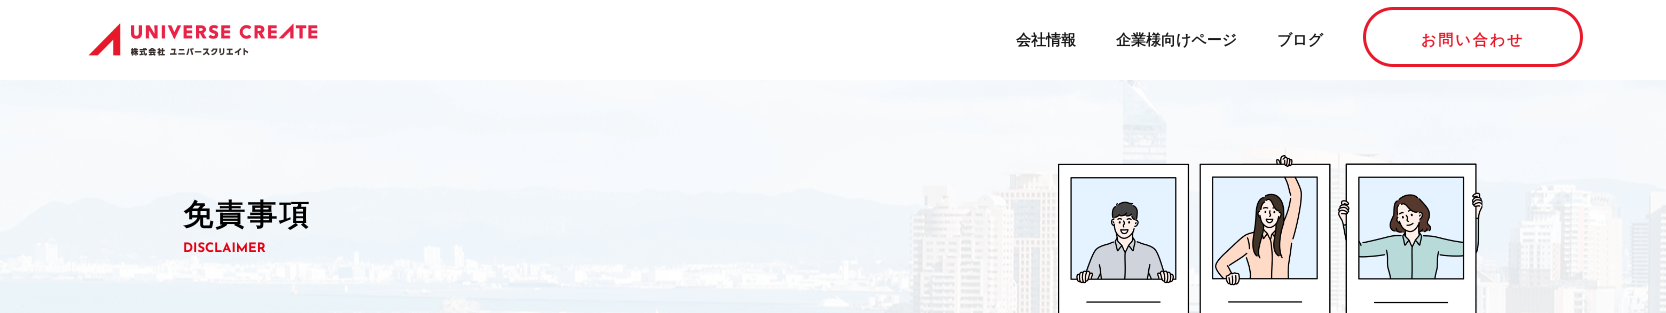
import math
import cairo



def draw_spaced(context, x, y, s, letter, word):
    context.move_to(x, y)
    for ch in s:
        context.show_text(ch)
        context.rel_move_to(letter + word * (ch == ' '), 0)


def rounded_rect(context, x, y, w, h, r):
    context.new_sub_path()
    for i, (u, v) in enumerate([(x + w - r, y + h - r), (x + r, y + h - r), (x + r, y + r), (x + w - r, y + r)]):
        context.arc(u, v, r, i * math.pi / 2, (i + 1) * math.pi / 2)
    context.close_path()


def draw_image(context, path, x, y, w, h):
    context.save()
    context.set_source_surface(cairo.ImageSurface.create_from_png(path), x, y)
    context.rectangle(x, y, w, h)
    context.fill()
    context.restore()


def draw(context):
    context.set_source_rgb(1, 1, 1)
    context.paint()
    draw_image(context, "images/1.png", 88, 23, 230, 33)
    rounded_rect(context, 1364.5, 8.5, 217, 57, 28.5)
    context.set_source_rgb(232 / 255, 25 / 255, 42 / 255)
    context.set_line_width(3)
    context.stroke()
    draw_image(context, "images/2.png", 0, 80, 1666, 233)
    draw_image(context, "images/3.png", 1058, 155, 425, 158)
    context.select_font_face("WenQuanYi Zen Hei", cairo.FontSlant.NORMAL, cairo.FontWeight.BOLD)
    context.set_font_size(15)
    context.set_source_rgb(25 / 255, 25 / 255, 25 / 255)
    context.move_to(1016, 45)
    context.show_text("会社情報")
    context.move_to(1116, 45)
    context.show_text("企業様向けページ")
    context.move_to(1277, 45)
    context.show_text("ブログ")
    context.set_source_rgb(232 / 255, 25 / 255, 42 / 255)
    draw_spaced(context, 1421, 45, "お問い合わせ", 2, 0)
    context.set_font_size(30)
    context.set_source_rgb(0, 0, 0)
    draw_spaced(context, 183, 225, "免責事項", 2, 0)
    context.select_font_face("Josefin Sans", cairo.FontSlant.NORMAL, cairo.FontWeight.BOLD)
    context.set_font_size(13)
    context.set_source_rgb(230 / 255, 0, 18 / 255)
    context.move_to(183, 252)
    context.show_text("DISCLAIMER")


surface = cairo.ImageSurface(cairo.Format.RGB24, 1666, 313)
context = cairo.Context(surface)
options = cairo.FontOptions()
options.set_hint_metrics(cairo.HintMetrics.OFF)
options.set_hint_style(cairo.HintStyle.NONE)
context.set_font_options(options)
context.set_miter_limit(4)
draw(context)
surface.write_to_png("out.png")
